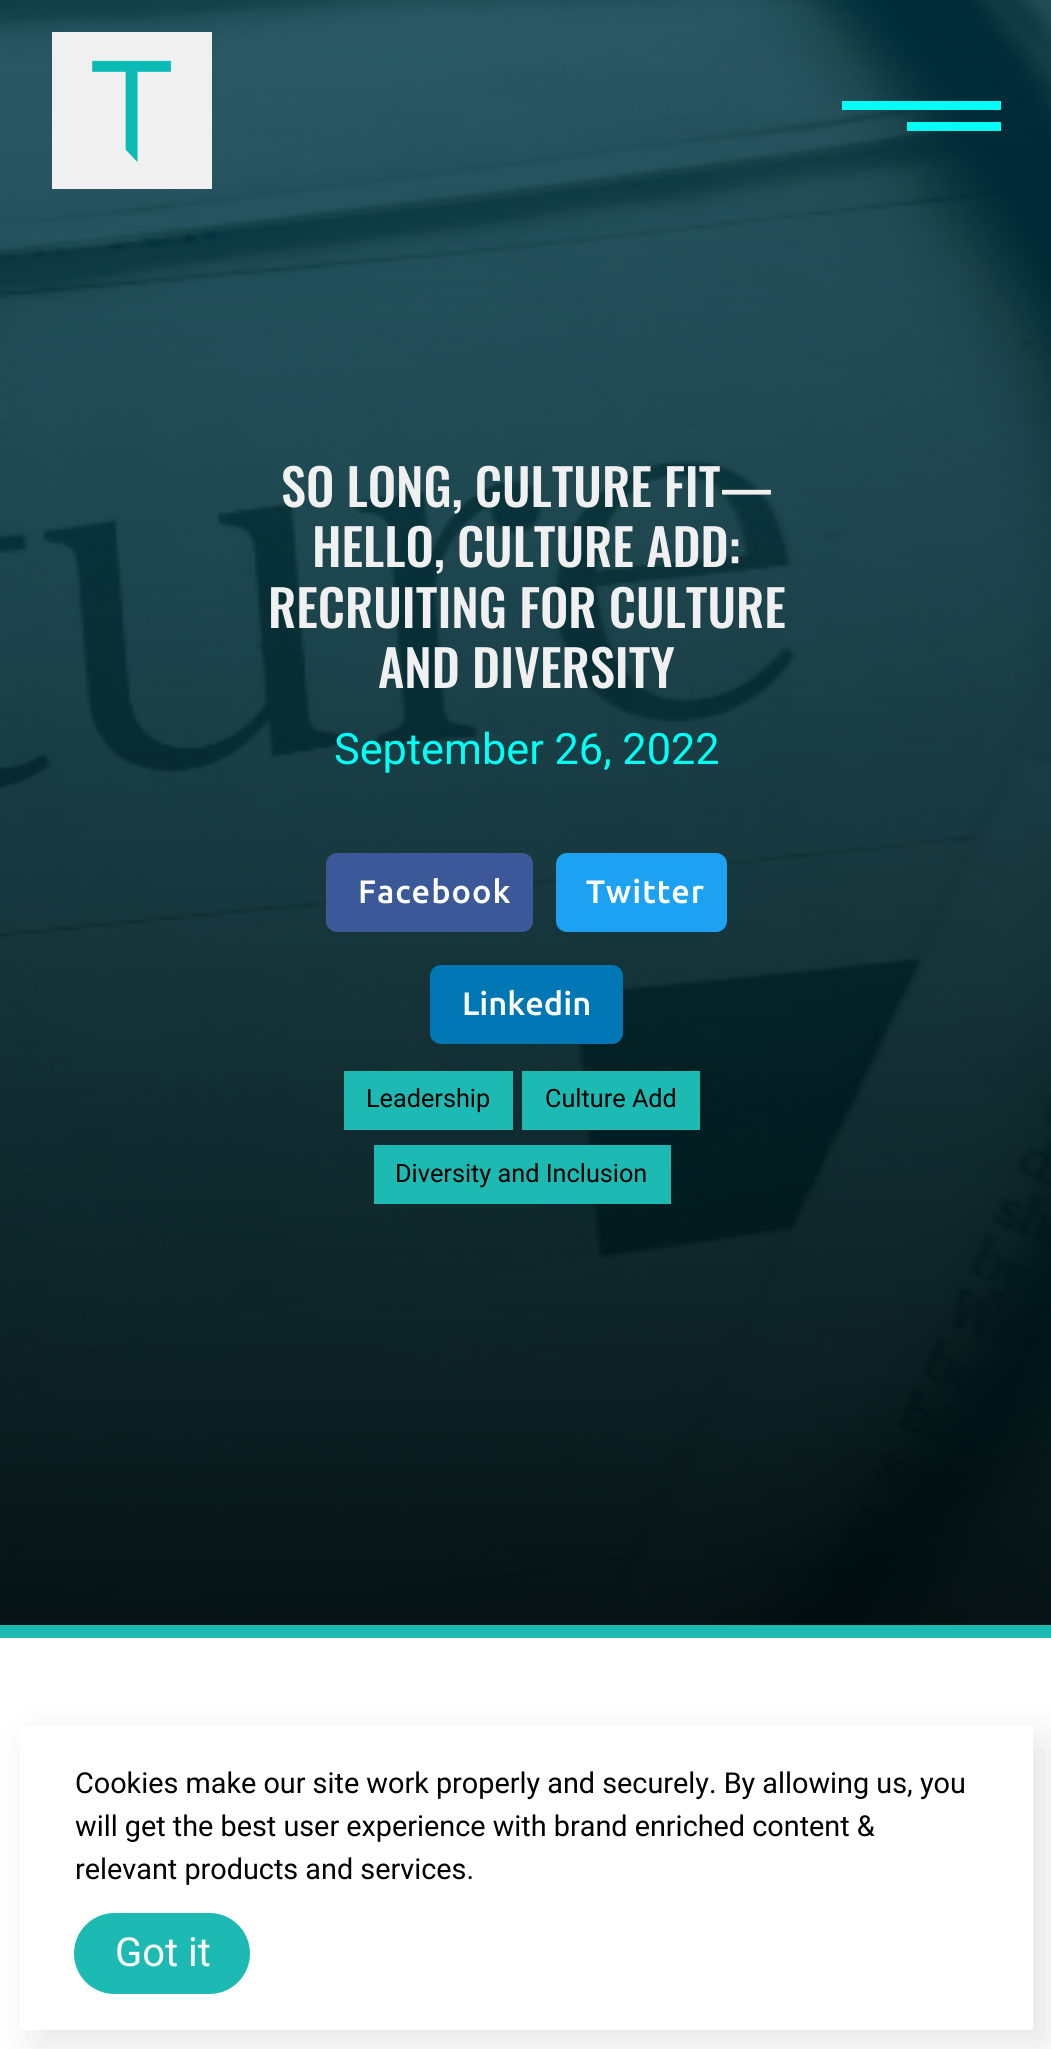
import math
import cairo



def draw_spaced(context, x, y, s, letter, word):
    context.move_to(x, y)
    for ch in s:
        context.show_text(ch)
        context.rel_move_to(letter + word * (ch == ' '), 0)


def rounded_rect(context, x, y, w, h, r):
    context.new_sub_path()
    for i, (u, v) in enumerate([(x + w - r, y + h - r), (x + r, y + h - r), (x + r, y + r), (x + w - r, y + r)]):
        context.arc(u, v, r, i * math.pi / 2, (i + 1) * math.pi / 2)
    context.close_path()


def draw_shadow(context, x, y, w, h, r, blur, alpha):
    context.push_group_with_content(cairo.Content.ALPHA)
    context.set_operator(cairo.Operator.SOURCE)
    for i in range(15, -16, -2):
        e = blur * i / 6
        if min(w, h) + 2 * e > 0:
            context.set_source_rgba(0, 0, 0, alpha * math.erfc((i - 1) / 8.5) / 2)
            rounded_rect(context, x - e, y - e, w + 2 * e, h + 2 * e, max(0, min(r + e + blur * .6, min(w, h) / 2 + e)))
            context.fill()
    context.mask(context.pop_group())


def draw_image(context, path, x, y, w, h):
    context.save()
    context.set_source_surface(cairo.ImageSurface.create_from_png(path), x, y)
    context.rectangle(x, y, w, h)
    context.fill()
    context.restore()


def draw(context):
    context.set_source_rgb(1, 1, 1)
    context.paint()
    draw_image(context, "images/2.png", 0, 0, 1051, 1625)
    context.set_source_rgb(240 / 255, 240 / 255, 240 / 255)
    context.rectangle(52, 32, 160, 157)
    context.fill()
    draw_image(context, "images/1.png", 92, 60, 80, 102)
    context.set_source_rgb(0, 1, 244 / 255)
    context.rectangle(842, 101, 159, 9)
    context.fill()
    context.rectangle(907, 122, 94, 9)
    context.fill()
    context.set_source_rgb(29 / 255, 186 / 255, 180 / 255)
    context.rectangle(0, 1625, 1051, 13)
    context.fill()
    context.set_source_rgb(59 / 255, 89 / 255, 152 / 255)
    rounded_rect(context, 326, 853, 207, 79, 11)
    context.fill()
    context.set_source_rgb(29 / 255, 161 / 255, 242 / 255)
    rounded_rect(context, 556, 853, 171, 79, 11)
    context.fill()
    context.set_source_rgb(0, 119 / 255, 181 / 255)
    rounded_rect(context, 430, 965, 193, 79, 11)
    context.fill()
    context.set_source_rgb(29 / 255, 186 / 255, 180 / 255)
    context.rectangle(344, 1071, 169, 59)
    context.fill()
    context.rectangle(522, 1071, 178, 59)
    context.fill()
    context.rectangle(374, 1145, 297, 59)
    context.fill()
    context.set_source_rgb(0, 0, 0)
    draw_shadow(context, 36, 1742, 1013, 303, 0, 22.5, 0.1)
    context.set_source_rgb(1, 1, 1)
    context.rectangle(20, 1726, 1013, 304)
    context.fill()
    context.set_source_rgb(29 / 255, 186 / 255, 180 / 255)
    rounded_rect(context, 74, 1913, 176, 81, 40.5)
    context.fill()
    context.select_font_face("Oswald Medium")
    context.set_font_size(50.4)
    context.set_source_rgb(240 / 255, 240 / 255, 240 / 255)
    context.move_to(281, 507)
    context.show_text("SO LONG, CULTURE FIT—")
    context.move_to(312, 567)
    context.show_text("HELLO, CULTURE ADD:")
    context.move_to(268, 628)
    context.show_text("RECRUITING FOR CULTURE")
    context.move_to(378, 688)
    context.show_text("AND DIVERSITY")
    context.select_font_face("Roboto")
    context.set_font_size(43.25)
    context.set_source_rgb(0, 1, 244 / 255)
    context.move_to(334, 764)
    context.show_text("September 26, 2022")
    context.select_font_face("Ubuntu Medium")
    context.set_font_size(32.5)
    context.set_source_rgb(1, 1, 1)
    draw_spaced(context, 358, 903, "Facebook", 1, 0)
    draw_spaced(context, 586, 903, "Twitter", 1, 0)
    context.move_to(462, 1015)
    context.show_text("Linkedin")
    context.select_font_face("Roboto")
    context.set_font_size(25.25)
    context.set_source_rgb(0, 0, 0)
    context.move_to(366, 1107)
    context.show_text("Leadership")
    context.move_to(545, 1107)
    context.show_text("Culture Add")
    context.move_to(395, 1182)
    context.show_text("Diversity and Inclusion")
    context.set_font_size(28.8)
    context.move_to(75, 1793)
    context.show_text("Cookies make our site work properly and securely. By allowing us, you")
    context.move_to(75, 1836)
    context.show_text("will get the best user experience with brand enriched content &")
    context.move_to(75, 1879)
    context.show_text("relevant products and services.")
    context.set_font_size(40)
    context.set_source_rgb(1, 1, 1)
    context.move_to(115, 1966)
    context.show_text("Got it")


surface = cairo.ImageSurface(cairo.Format.RGB24, 1051, 2049)
context = cairo.Context(surface)
options = cairo.FontOptions()
options.set_hint_metrics(cairo.HintMetrics.OFF)
options.set_hint_style(cairo.HintStyle.NONE)
context.set_font_options(options)
context.set_miter_limit(4)
draw(context)
surface.write_to_png("out.png")
